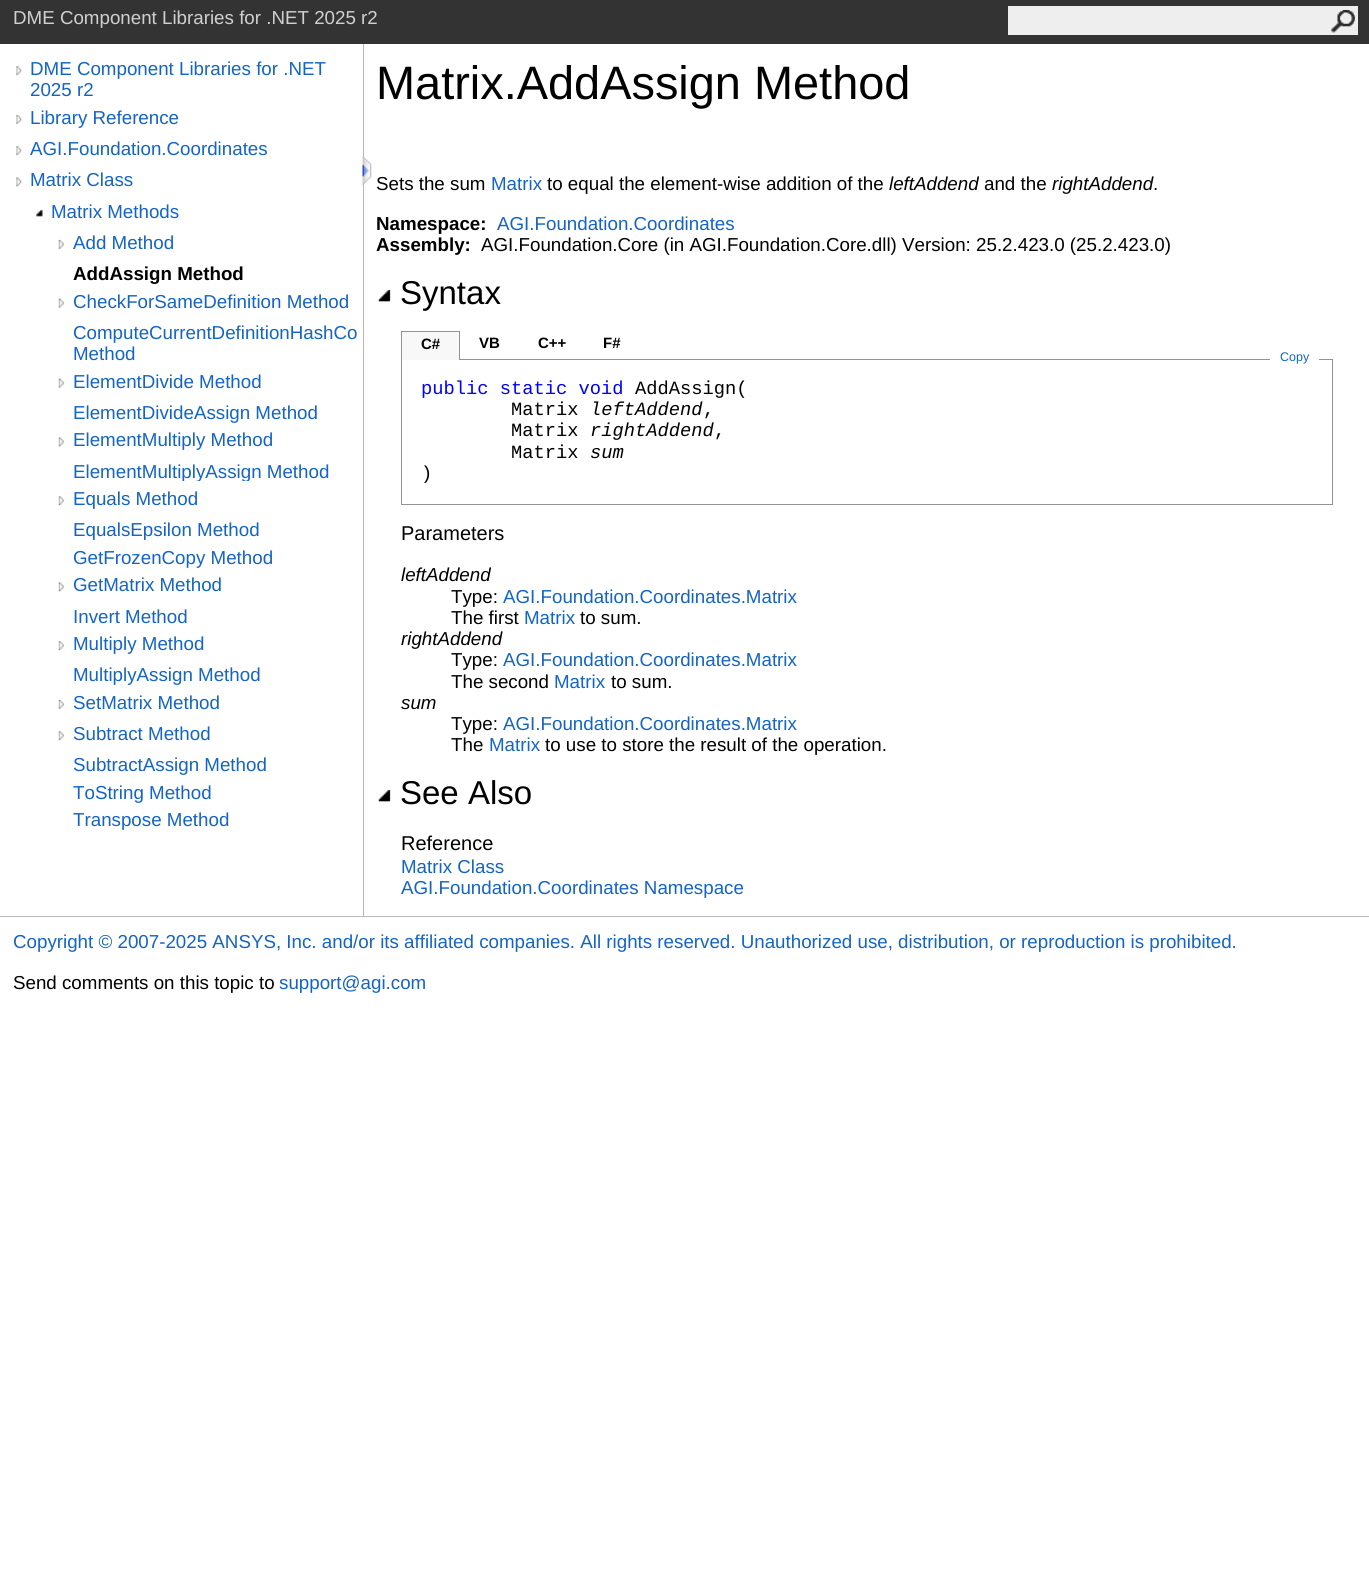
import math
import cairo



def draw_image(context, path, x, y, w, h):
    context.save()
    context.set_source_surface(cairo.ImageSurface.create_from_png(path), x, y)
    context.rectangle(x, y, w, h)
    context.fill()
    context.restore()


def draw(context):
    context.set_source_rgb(1, 1, 1)
    context.paint()
    context.set_source_rgb(51 / 255, 51 / 255, 51 / 255)
    context.rectangle(0, 0, 1369, 44)
    context.fill()
    context.set_source_rgb(238 / 255, 238 / 255, 238 / 255)
    context.rectangle(1008, 6, 350, 29)
    context.fill()
    draw_image(context, "images/1.png", 1331, 10, 24, 23)
    context.set_source_rgb(182 / 255, 182 / 255, 182 / 255)
    context.rectangle(363, 44, 1, 872)
    context.fill()
    draw_image(context, "images/2.png", 16, 66, 6, 10)
    draw_image(context, "images/3.png", 16, 114, 6, 10)
    draw_image(context, "images/2.png", 16, 146, 6, 10)
    draw_image(context, "images/4.png", 16, 177, 6, 10)
    draw_image(context, "images/5.png", 36, 209, 7, 8)
    draw_image(context, "images/6.png", 58, 239, 6, 10)
    draw_image(context, "images/7.png", 58, 298, 6, 10)
    draw_image(context, "images/7.png", 58, 378, 6, 10)
    draw_image(context, "images/8.png", 58, 437, 6, 10)
    draw_image(context, "images/9.png", 58, 496, 6, 10)
    draw_image(context, "images/8.png", 58, 582, 6, 10)
    draw_image(context, "images/9.png", 58, 641, 6, 10)
    draw_image(context, "images/6.png", 58, 699, 6, 10)
    draw_image(context, "images/9.png", 58, 731, 6, 10)
    draw_image(context, "images/10.png", 362, 156, 10, 29)
    draw_image(context, "images/11.png", 378, 289, 13, 13)
    context.rectangle(401.5, 359.5, 931, 145)
    context.set_source_rgb(147 / 255, 147 / 255, 147 / 255)
    context.set_line_width(1)
    context.stroke()
    context.set_source_rgb(248 / 255, 248 / 255, 248 / 255)
    context.rectangle(402, 332, 57, 28)
    context.fill()
    context.set_source_rgb(147 / 255, 147 / 255, 147 / 255)
    context.rectangle(401, 331, 59, 1)
    context.fill()
    context.rectangle(459, 331, 1, 29)
    context.fill()
    context.rectangle(401, 331, 1, 29)
    context.fill()
    context.set_source_rgb(1, 1, 1)
    context.rectangle(1270, 359, 49, 1)
    context.fill()
    draw_image(context, "images/12.png", 378, 789, 13, 13)
    context.set_source_rgb(187 / 255, 187 / 255, 187 / 255)
    context.rectangle(0, 916, 1369, 1)
    context.fill()
    context.select_font_face("Liberation Sans")
    context.set_font_size(18.75)
    context.set_source_rgb(208 / 255, 208 / 255, 208 / 255)
    context.move_to(13, 24)
    context.show_text("DME Component Libraries for .NET 2025 r2")
    context.set_source_rgb(19 / 255, 100 / 255, 196 / 255)
    context.move_to(30, 75)
    context.show_text("DME Component Libraries for .NET")
    context.move_to(30, 96)
    context.show_text("2025 r2")
    context.move_to(30, 124)
    context.show_text("Library Reference")
    context.move_to(30, 155)
    context.show_text("AGI.Foundation.Coordinates")
    context.move_to(30, 186)
    context.show_text("Matrix Class")
    context.move_to(51, 218)
    context.show_text("Matrix Methods")
    context.move_to(73, 249)
    context.show_text("Add Method")
    context.select_font_face("Liberation Sans", cairo.FontSlant.NORMAL, cairo.FontWeight.BOLD)
    context.set_source_rgb(0, 0, 0)
    context.move_to(73, 280)
    context.show_text("AddAssign Method")
    context.select_font_face("Liberation Sans")
    context.set_source_rgb(19 / 255, 100 / 255, 196 / 255)
    context.move_to(73, 308)
    context.show_text("CheckForSameDefinition Method")
    context.move_to(73, 339)
    context.show_text("ComputeCurrentDefinitionHashCo")
    context.move_to(73, 360)
    context.show_text("Method")
    context.move_to(73, 388)
    context.show_text("ElementDivide Method")
    context.move_to(73, 419)
    context.show_text("ElementDivideAssign Method")
    context.move_to(73, 446)
    context.show_text("ElementMultiply Method")
    context.save()
    context.rectangle(73, 460, 290, 21)
    context.clip()
    context.move_to(73, 478)
    context.show_text("ElementMultiplyAssign Method")
    context.restore()
    context.move_to(73, 505)
    context.show_text("Equals Method")
    context.move_to(73, 536)
    context.show_text("EqualsEpsilon Method")
    context.move_to(73, 564)
    context.show_text("GetFrozenCopy Method")
    context.move_to(73, 591)
    context.show_text("GetMatrix Method")
    context.move_to(73, 623)
    context.show_text("Invert Method")
    context.move_to(73, 650)
    context.show_text("Multiply Method")
    context.move_to(73, 681)
    context.show_text("MultiplyAssign Method")
    context.move_to(73, 709)
    context.show_text("SetMatrix Method")
    context.move_to(73, 740)
    context.show_text("Subtract Method")
    context.move_to(73, 771)
    context.show_text("SubtractAssign Method")
    context.move_to(73, 799)
    context.show_text("ToString Method")
    context.move_to(73, 826)
    context.show_text("Transpose Method")
    context.set_font_size(46.9)
    context.set_source_rgb(0, 0, 0)
    context.move_to(376, 99)
    context.show_text("Matrix.AddAssign Method")
    context.set_font_size(18.75)
    context.move_to(376, 190)
    context.show_text("Sets the sum")
    context.set_source_rgb(19 / 255, 100 / 255, 196 / 255)
    context.move_to(491, 190)
    context.show_text("Matrix")
    context.set_source_rgb(0, 0, 0)
    context.move_to(547, 190)
    context.show_text("to equal the element-wise addition of the")
    context.select_font_face("Liberation Sans", cairo.FontSlant.ITALIC)
    context.move_to(889, 190)
    context.show_text("leftAddend")
    context.select_font_face("Liberation Sans")
    context.move_to(984, 190)
    context.show_text("and the")
    context.select_font_face("Liberation Sans", cairo.FontSlant.ITALIC)
    context.move_to(1052, 190)
    context.show_text("rightAddend")
    context.select_font_face("Liberation Sans")
    context.move_to(1153, 190)
    context.show_text(".")
    context.select_font_face("Liberation Sans", cairo.FontSlant.NORMAL, cairo.FontWeight.BOLD)
    context.move_to(376, 230)
    context.show_text("Namespace:")
    context.select_font_face("Liberation Sans")
    context.set_source_rgb(19 / 255, 100 / 255, 196 / 255)
    context.move_to(497, 230)
    context.show_text("AGI.Foundation.Coordinates")
    context.select_font_face("Liberation Sans", cairo.FontSlant.NORMAL, cairo.FontWeight.BOLD)
    context.set_source_rgb(0, 0, 0)
    context.move_to(376, 251)
    context.show_text("Assembly:")
    context.select_font_face("Liberation Sans")
    context.move_to(481, 251)
    context.show_text("AGI.Foundation.Core (in AGI.Foundation.Core.dll) Version: 25.2.423.0 (25.2.423.0)")
    context.set_font_size(33)
    context.move_to(400, 304)
    context.show_text("Syntax")
    context.select_font_face("Liberation Sans", cairo.FontSlant.NORMAL, cairo.FontWeight.BOLD)
    context.set_font_size(15)
    context.move_to(421, 349)
    context.show_text("C#")
    context.move_to(479, 348)
    context.show_text("VB")
    context.move_to(538, 348)
    context.show_text("C++")
    context.move_to(603, 348)
    context.show_text("F#")
    context.select_font_face("Liberation Sans")
    context.set_font_size(12.5)
    context.set_source_rgb(19 / 255, 100 / 255, 196 / 255)
    context.move_to(1280, 361)
    context.show_text("Copy")
    context.select_font_face("Liberation Mono")
    context.set_font_size(18.75)
    context.set_source_rgb(0, 0, 1)
    context.move_to(421, 394)
    context.show_text("public static void")
    context.set_source_rgb(0, 0, 0)
    context.move_to(635, 394)
    context.show_text("AddAssign(")
    context.move_to(511, 415)
    context.show_text("Matrix")
    context.select_font_face("Liberation Mono", cairo.FontSlant.ITALIC)
    context.move_to(590, 415)
    context.show_text("leftAddend")
    context.select_font_face("Liberation Mono")
    context.move_to(703, 415)
    context.show_text(",")
    context.move_to(511, 436)
    context.show_text("Matrix")
    context.select_font_face("Liberation Mono", cairo.FontSlant.ITALIC)
    context.move_to(590, 436)
    context.show_text("rightAddend")
    context.select_font_face("Liberation Mono")
    context.move_to(714, 436)
    context.show_text(",")
    context.move_to(511, 458)
    context.show_text("Matrix")
    context.select_font_face("Liberation Mono", cairo.FontSlant.ITALIC)
    context.move_to(590, 458)
    context.show_text("sum")
    context.select_font_face("Liberation Mono")
    context.move_to(421, 479)
    context.show_text(")")
    context.select_font_face("Liberation Sans")
    context.set_font_size(20)
    context.move_to(401, 540)
    context.show_text("Parameters")
    context.select_font_face("Liberation Sans", cairo.FontSlant.ITALIC)
    context.set_font_size(18.75)
    context.move_to(401, 581)
    context.show_text("leftAddend")
    context.select_font_face("Liberation Sans")
    context.move_to(451, 603)
    context.show_text("Type:")
    context.set_source_rgb(19 / 255, 100 / 255, 196 / 255)
    context.move_to(503, 603)
    context.show_text("AGI.Foundation.Coordinates.Matrix")
    context.set_source_rgb(0, 0, 0)
    context.move_to(451, 624)
    context.show_text("The first")
    context.set_source_rgb(19 / 255, 100 / 255, 196 / 255)
    context.move_to(524, 624)
    context.show_text("Matrix")
    context.set_source_rgb(0, 0, 0)
    context.move_to(580, 624)
    context.show_text("to sum.")
    context.select_font_face("Liberation Sans", cairo.FontSlant.ITALIC)
    context.move_to(401, 645)
    context.show_text("rightAddend")
    context.select_font_face("Liberation Sans")
    context.move_to(451, 666)
    context.show_text("Type:")
    context.set_source_rgb(19 / 255, 100 / 255, 196 / 255)
    context.move_to(503, 666)
    context.show_text("AGI.Foundation.Coordinates.Matrix")
    context.set_source_rgb(0, 0, 0)
    context.move_to(451, 688)
    context.show_text("The second")
    context.set_source_rgb(19 / 255, 100 / 255, 196 / 255)
    context.move_to(554, 688)
    context.show_text("Matrix")
    context.set_source_rgb(0, 0, 0)
    context.move_to(611, 688)
    context.show_text("to sum.")
    context.select_font_face("Liberation Sans", cairo.FontSlant.ITALIC)
    context.move_to(401, 709)
    context.show_text("sum")
    context.select_font_face("Liberation Sans")
    context.move_to(451, 730)
    context.show_text("Type:")
    context.set_source_rgb(19 / 255, 100 / 255, 196 / 255)
    context.move_to(503, 730)
    context.show_text("AGI.Foundation.Coordinates.Matrix")
    context.set_source_rgb(0, 0, 0)
    context.move_to(451, 751)
    context.show_text("The")
    context.set_source_rgb(19 / 255, 100 / 255, 196 / 255)
    context.move_to(489, 751)
    context.show_text("Matrix")
    context.set_source_rgb(0, 0, 0)
    context.move_to(545, 751)
    context.show_text("to use to store the result of the operation.")
    context.set_font_size(33)
    context.move_to(400, 804)
    context.show_text("See Also")
    context.set_font_size(20)
    context.move_to(401, 850)
    context.show_text("Reference")
    context.set_font_size(18.75)
    context.set_source_rgb(19 / 255, 100 / 255, 196 / 255)
    context.move_to(401, 873)
    context.show_text("Matrix Class")
    context.move_to(401, 894)
    context.show_text("AGI.Foundation.Coordinates Namespace")
    context.move_to(13, 948)
    context.show_text("Copyright © 2007-2025 ANSYS, Inc. and/or its affiliated companies. All rights reserved. Unauthorized use, distribution, or reproduction is prohibited.")
    context.set_source_rgb(0, 0, 0)
    context.move_to(13, 989)
    context.show_text("Send comments on this topic to")
    context.set_source_rgb(19 / 255, 100 / 255, 196 / 255)
    context.move_to(279, 989)
    context.show_text("support@agi.com")


surface = cairo.ImageSurface(cairo.Format.RGB24, 1369, 1587)
context = cairo.Context(surface)
options = cairo.FontOptions()
options.set_hint_metrics(cairo.HintMetrics.OFF)
options.set_hint_style(cairo.HintStyle.NONE)
context.set_font_options(options)
context.set_miter_limit(4)
draw(context)
surface.write_to_png("out.png")
